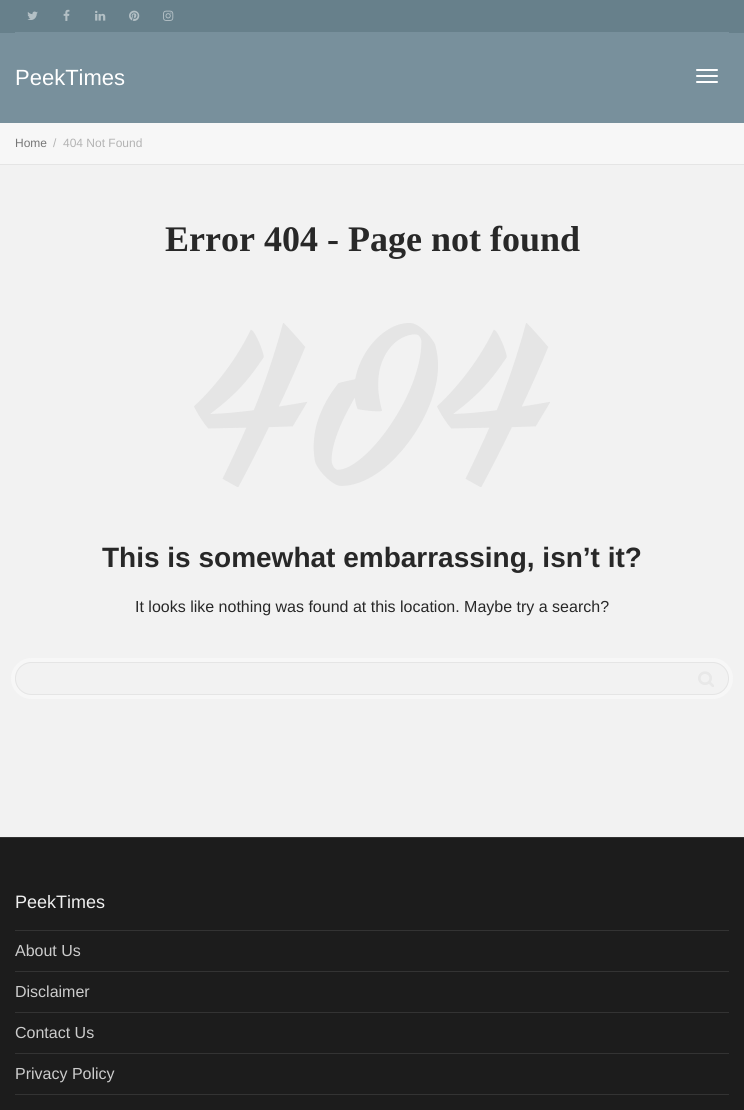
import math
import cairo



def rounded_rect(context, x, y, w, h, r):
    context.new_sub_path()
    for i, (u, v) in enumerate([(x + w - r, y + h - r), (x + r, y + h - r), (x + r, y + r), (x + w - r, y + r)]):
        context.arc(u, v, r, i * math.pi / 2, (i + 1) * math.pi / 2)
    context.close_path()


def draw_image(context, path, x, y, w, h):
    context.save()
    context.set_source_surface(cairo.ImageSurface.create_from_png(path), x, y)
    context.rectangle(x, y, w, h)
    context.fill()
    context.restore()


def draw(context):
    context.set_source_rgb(242 / 255, 242 / 255, 242 / 255)
    context.paint()
    context.set_source_rgb(103 / 255, 128 / 255, 139 / 255)
    context.rectangle(0, 0, 744, 33)
    context.fill()
    context.set_source_rgb(120 / 255, 144 / 255, 156 / 255)
    context.rectangle(0, 33, 744, 90)
    context.fill()
    context.rectangle(15, 32, 714, 1)
    context.fill()
    draw_image(context, "images/1.png", 27, 11, 11, 9)
    draw_image(context, "images/2.png", 63, 9, 7, 12)
    draw_image(context, "images/3.png", 95, 10, 11, 11)
    draw_image(context, "images/4.png", 129, 10, 11, 11)
    draw_image(context, "images/5.png", 163, 10, 11, 11)
    context.set_source_rgb(1, 1, 1)
    rounded_rect(context, 696, 69, 22, 2, 1)
    context.fill()
    rounded_rect(context, 696, 75, 22, 2, 1)
    context.fill()
    rounded_rect(context, 696, 81, 22, 2, 1)
    context.fill()
    context.set_source_rgb(247 / 255, 247 / 255, 247 / 255)
    context.rectangle(0, 123, 744, 41)
    context.fill()
    context.set_source_rgb(229 / 255, 229 / 255, 229 / 255)
    context.rectangle(0, 164, 744, 1)
    context.fill()
    draw_image(context, "images/6.png", 194, 323, 356, 164)
    rounded_rect(context, 13, 660, 718, 37, 18.5)
    context.set_source_rgb(247 / 255, 247 / 255, 247 / 255)
    context.set_line_width(4)
    context.stroke()
    rounded_rect(context, 15.5, 662.5, 713, 32, 16)
    context.set_source_rgb(229 / 255, 229 / 255, 229 / 255)
    context.set_line_width(1)
    context.stroke()
    draw_image(context, "images/7.png", 698, 671, 16, 16)
    context.set_source_rgb(28 / 255, 28 / 255, 28 / 255)
    context.rectangle(0, 838, 744, 272)
    context.fill()
    context.set_source_rgb(51 / 255, 51 / 255, 51 / 255)
    context.rectangle(0, 837, 744, 1)
    context.fill()
    context.rectangle(15, 930, 714, 1)
    context.fill()
    context.rectangle(15, 971, 714, 1)
    context.fill()
    context.rectangle(15, 1012, 714, 1)
    context.fill()
    context.rectangle(15, 1053, 714, 1)
    context.fill()
    context.rectangle(15, 1094, 714, 1)
    context.fill()
    context.select_font_face("Liberation Sans")
    context.set_font_size(22)
    context.set_source_rgb(1, 1, 1)
    context.move_to(15, 85)
    context.show_text("PeekTimes")
    context.set_font_size(12)
    context.set_source_rgb(119 / 255, 119 / 255, 119 / 255)
    context.move_to(15, 147)
    context.show_text("Home")
    context.set_source_rgb(179 / 255, 179 / 255, 179 / 255)
    context.move_to(53, 147)
    context.show_text("/")
    context.move_to(63, 147)
    context.show_text("404 Not Found")
    context.select_font_face("Liberation Serif", cairo.FontSlant.NORMAL, cairo.FontWeight.BOLD)
    context.set_font_size(36)
    context.set_source_rgb(40 / 255, 40 / 255, 40 / 255)
    context.move_to(165, 251)
    context.show_text("Error 404 - Page not found")
    context.select_font_face("Liberation Sans", cairo.FontSlant.NORMAL, cairo.FontWeight.BOLD)
    context.set_font_size(28)
    context.move_to(102, 567)
    context.show_text("This is somewhat embarrassing, isn’t it?")
    context.select_font_face("Liberation Sans")
    context.set_font_size(16)
    context.move_to(135, 612)
    context.show_text("It looks like nothing was found at this location. Maybe try a search?")
    context.set_font_size(18)
    context.set_source_rgb(239 / 255, 239 / 255, 239 / 255)
    context.move_to(15, 908)
    context.show_text("PeekTimes")
    context.set_font_size(16)
    context.set_source_rgb(204 / 255, 204 / 255, 204 / 255)
    context.move_to(15, 956)
    context.show_text("About Us")
    context.move_to(15, 997)
    context.show_text("Disclaimer")
    context.move_to(15, 1038)
    context.show_text("Contact Us")
    context.move_to(15, 1079)
    context.show_text("Privacy Policy")


surface = cairo.ImageSurface(cairo.Format.RGB24, 744, 1110)
context = cairo.Context(surface)
options = cairo.FontOptions()
options.set_hint_metrics(cairo.HintMetrics.OFF)
options.set_hint_style(cairo.HintStyle.NONE)
context.set_font_options(options)
context.set_miter_limit(4)
draw(context)
surface.write_to_png("out.png")
